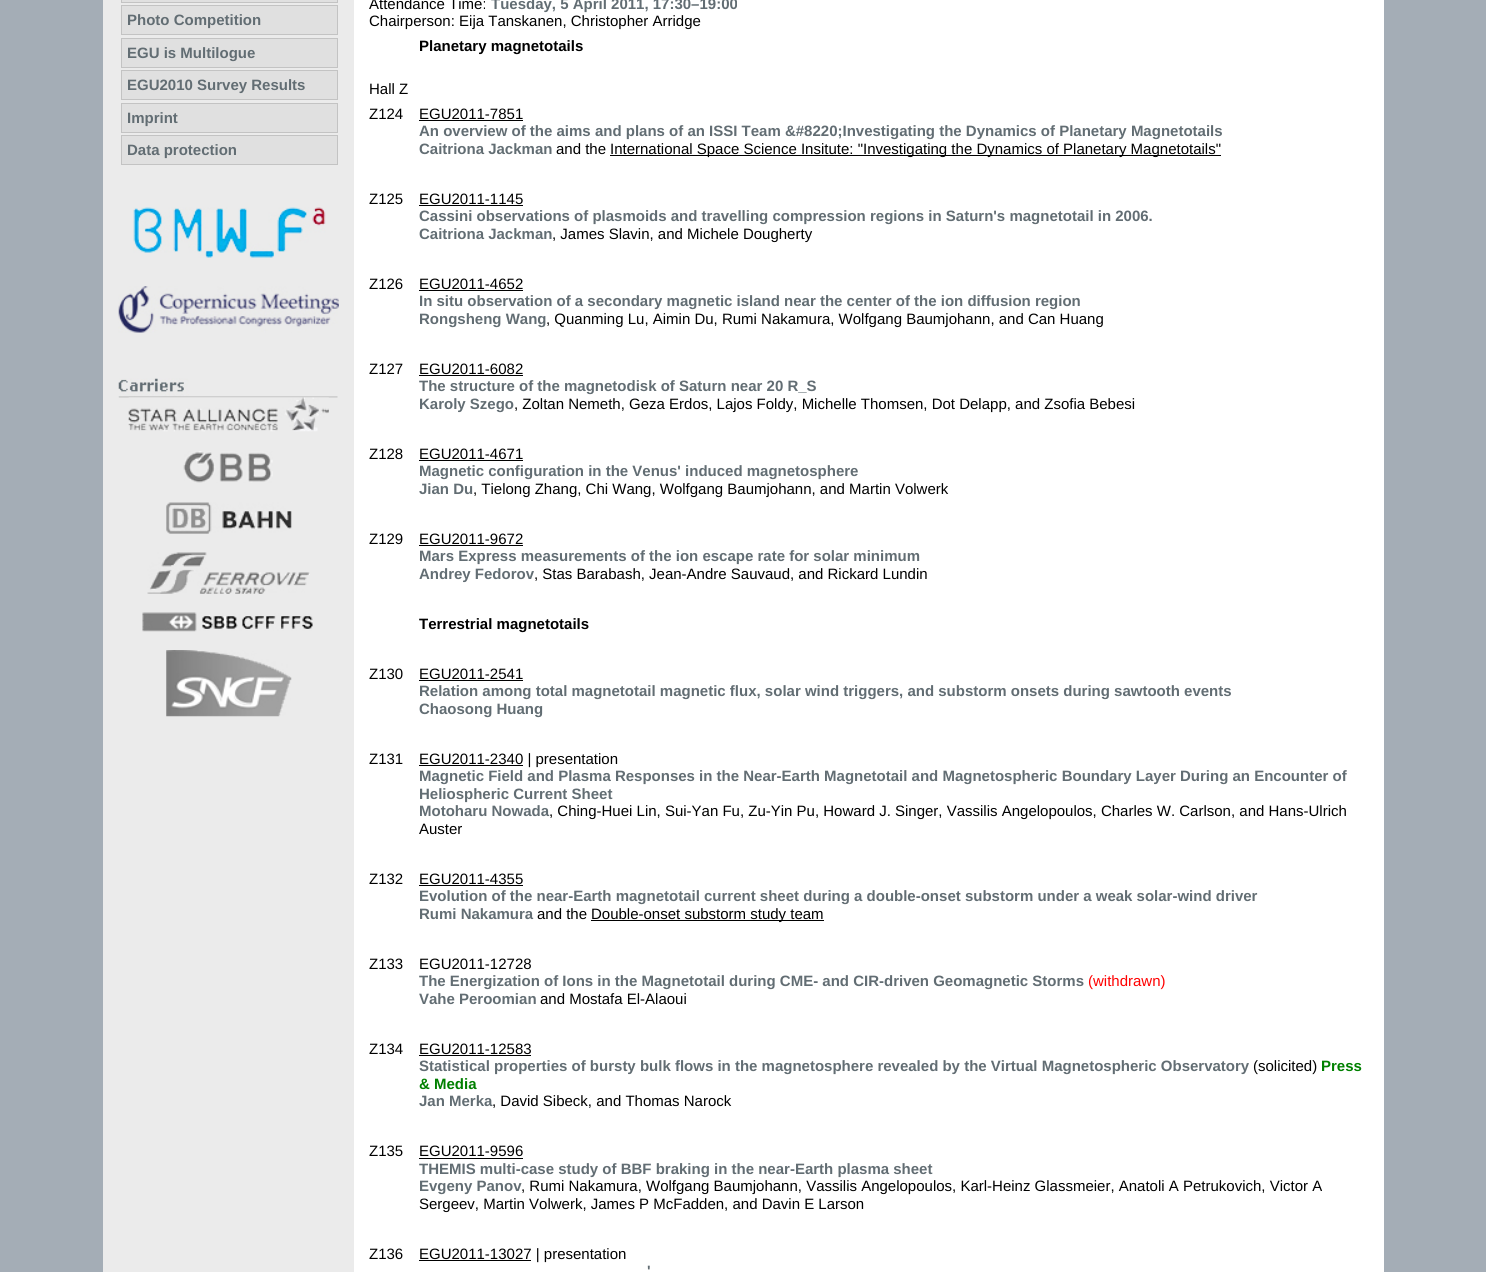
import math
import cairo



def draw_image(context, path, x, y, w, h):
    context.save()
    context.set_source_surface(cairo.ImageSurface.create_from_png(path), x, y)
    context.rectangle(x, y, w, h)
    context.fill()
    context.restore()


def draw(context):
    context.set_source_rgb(164 / 255, 173 / 255, 182 / 255)
    context.paint()
    context.set_source_rgb(1, 1, 1)
    context.rectangle(354, 0, 1030, 1272)
    context.fill()
    context.set_source_rgb(235 / 255, 235 / 255, 235 / 255)
    context.rectangle(103, 0, 251, 1272)
    context.fill()
    context.set_source_rgb(224 / 255, 224 / 255, 224 / 255)
    context.rectangle(121.5, -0.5, 216, 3)
    context.fill_preserve()
    context.set_source_rgb(195 / 255, 195 / 255, 195 / 255)
    context.set_line_width(1)
    context.stroke()
    context.set_source_rgb(224 / 255, 224 / 255, 224 / 255)
    context.rectangle(121.5, 5.5, 216, 29)
    context.fill_preserve()
    context.set_source_rgb(195 / 255, 195 / 255, 195 / 255)
    context.stroke()
    context.set_source_rgb(224 / 255, 224 / 255, 224 / 255)
    context.rectangle(121.5, 38.5, 216, 29)
    context.fill_preserve()
    context.set_source_rgb(195 / 255, 195 / 255, 195 / 255)
    context.stroke()
    context.set_source_rgb(224 / 255, 224 / 255, 224 / 255)
    context.rectangle(121.5, 70.5, 216, 29)
    context.fill_preserve()
    context.set_source_rgb(195 / 255, 195 / 255, 195 / 255)
    context.stroke()
    context.set_source_rgb(224 / 255, 224 / 255, 224 / 255)
    context.rectangle(121.5, 103.5, 216, 29)
    context.fill_preserve()
    context.set_source_rgb(195 / 255, 195 / 255, 195 / 255)
    context.stroke()
    context.set_source_rgb(224 / 255, 224 / 255, 224 / 255)
    context.rectangle(121.5, 135.5, 216, 29)
    context.fill_preserve()
    context.set_source_rgb(195 / 255, 195 / 255, 195 / 255)
    context.stroke()
    draw_image(context, "images/1.png", 133, 207, 193, 51)
    draw_image(context, "images/2.png", 118, 286, 221, 47)
    draw_image(context, "images/3.png", 118, 378, 220, 20)
    draw_image(context, "images/4.png", 128, 397, 201, 35)
    draw_image(context, "images/5.png", 183, 451, 90, 32)
    draw_image(context, "images/6.png", 166, 502, 126, 32)
    draw_image(context, "images/7.png", 147, 552, 163, 42)
    draw_image(context, "images/8.png", 142, 612, 171, 20)
    draw_image(context, "images/9.png", 166, 650, 126, 67)
    context.set_source_rgb(0, 0, 0)
    context.rectangle(419, 120, 104, 1)
    context.fill()
    context.rectangle(610, 155, 611, 1)
    context.fill()
    context.rectangle(419, 205, 104, 1)
    context.fill()
    context.rectangle(419, 290, 104, 1)
    context.fill()
    context.rectangle(419, 375, 104, 1)
    context.fill()
    context.rectangle(419, 460, 104, 1)
    context.fill()
    context.rectangle(419, 545, 104, 1)
    context.fill()
    context.rectangle(419, 680, 104, 1)
    context.fill()
    context.rectangle(419, 765, 104, 1)
    context.fill()
    context.rectangle(419, 885, 104, 1)
    context.fill()
    context.rectangle(591, 920, 233, 1)
    context.fill()
    context.rectangle(419, 1055, 112, 1)
    context.fill()
    context.rectangle(419, 1158, 104, 1)
    context.fill()
    context.rectangle(419, 1260, 112, 1)
    context.fill()
    context.select_font_face("Liberation Sans", cairo.FontSlant.NORMAL, cairo.FontWeight.BOLD)
    context.set_font_size(15)
    context.set_source_rgb(98 / 255, 109 / 255, 115 / 255)
    context.move_to(127, 25)
    context.show_text("Photo Competition")
    context.move_to(127, 58)
    context.show_text("EGU is Multilogue")
    context.move_to(127, 90)
    context.show_text("EGU2010 Survey Results")
    context.move_to(127, 123)
    context.show_text("Imprint")
    context.move_to(127, 155)
    context.show_text("Data protection")
    context.select_font_face("Liberation Sans")
    context.set_source_rgb(0, 0, 0)
    context.move_to(369, 9)
    context.show_text("Attendance Time:")
    context.select_font_face("Liberation Sans", cairo.FontSlant.NORMAL, cairo.FontWeight.BOLD)
    context.set_source_rgb(98 / 255, 109 / 255, 115 / 255)
    context.move_to(491, 9)
    context.show_text("Tuesday, 5 April 2011, 17:30–19:00")
    context.select_font_face("Liberation Sans")
    context.set_source_rgb(0, 0, 0)
    context.move_to(369, 26)
    context.show_text("Chairperson: Eija Tanskanen, Christopher Arridge")
    context.select_font_face("Liberation Sans", cairo.FontSlant.NORMAL, cairo.FontWeight.BOLD)
    context.move_to(419, 51)
    context.show_text("Planetary magnetotails")
    context.select_font_face("Liberation Sans")
    context.move_to(369, 94)
    context.show_text("Hall Z")
    context.move_to(369, 119)
    context.show_text("Z124")
    context.move_to(419, 119)
    context.show_text("EGU2011-7851")
    context.select_font_face("Liberation Sans", cairo.FontSlant.NORMAL, cairo.FontWeight.BOLD)
    context.set_source_rgb(98 / 255, 109 / 255, 115 / 255)
    context.move_to(419, 136)
    context.show_text("An overview of the aims and plans of an ISSI Team &#8220;Investigating the Dynamics of Planetary Magnetotails")
    context.move_to(419, 154)
    context.show_text("Caitriona Jackman")
    context.select_font_face("Liberation Sans")
    context.set_source_rgb(0, 0, 0)
    context.move_to(556, 154)
    context.show_text("and the")
    context.move_to(610, 154)
    context.show_text("International Space Science Insitute: \"Investigating the Dynamics of Planetary Magnetotails\"")
    context.move_to(369, 204)
    context.show_text("Z125")
    context.move_to(419, 204)
    context.show_text("EGU2011-1145")
    context.select_font_face("Liberation Sans", cairo.FontSlant.NORMAL, cairo.FontWeight.BOLD)
    context.set_source_rgb(98 / 255, 109 / 255, 115 / 255)
    context.move_to(419, 221)
    context.show_text("Cassini observations of plasmoids and travelling compression regions in Saturn's magnetotail in 2006.")
    context.move_to(419, 239)
    context.show_text("Caitriona Jackman")
    context.select_font_face("Liberation Sans")
    context.set_source_rgb(0, 0, 0)
    context.move_to(552, 239)
    context.show_text(", James Slavin, and Michele Dougherty")
    context.move_to(369, 289)
    context.show_text("Z126")
    context.move_to(419, 289)
    context.show_text("EGU2011-4652")
    context.select_font_face("Liberation Sans", cairo.FontSlant.NORMAL, cairo.FontWeight.BOLD)
    context.set_source_rgb(98 / 255, 109 / 255, 115 / 255)
    context.move_to(419, 306)
    context.show_text("In situ observation of a secondary magnetic island near the center of the ion diffusion region")
    context.move_to(419, 324)
    context.show_text("Rongsheng Wang")
    context.select_font_face("Liberation Sans")
    context.set_source_rgb(0, 0, 0)
    context.move_to(546, 324)
    context.show_text(", Quanming Lu, Aimin Du, Rumi Nakamura, Wolfgang Baumjohann, and Can Huang")
    context.move_to(369, 374)
    context.show_text("Z127")
    context.move_to(419, 374)
    context.show_text("EGU2011-6082")
    context.select_font_face("Liberation Sans", cairo.FontSlant.NORMAL, cairo.FontWeight.BOLD)
    context.set_source_rgb(98 / 255, 109 / 255, 115 / 255)
    context.move_to(419, 391)
    context.show_text("The structure of the magnetodisk of Saturn near 20 R_S")
    context.move_to(419, 409)
    context.show_text("Karoly Szego")
    context.select_font_face("Liberation Sans")
    context.set_source_rgb(0, 0, 0)
    context.move_to(514, 409)
    context.show_text(", Zoltan Nemeth, Geza Erdos, Lajos Foldy, Michelle Thomsen, Dot Delapp, and Zsofia Bebesi")
    context.move_to(369, 459)
    context.show_text("Z128")
    context.move_to(419, 459)
    context.show_text("EGU2011-4671")
    context.select_font_face("Liberation Sans", cairo.FontSlant.NORMAL, cairo.FontWeight.BOLD)
    context.set_source_rgb(98 / 255, 109 / 255, 115 / 255)
    context.move_to(419, 476)
    context.show_text("Magnetic configuration in the Venus' induced magnetosphere")
    context.move_to(419, 494)
    context.show_text("Jian Du")
    context.select_font_face("Liberation Sans")
    context.set_source_rgb(0, 0, 0)
    context.move_to(473, 494)
    context.show_text(", Tielong Zhang, Chi Wang, Wolfgang Baumjohann, and Martin Volwerk")
    context.move_to(369, 544)
    context.show_text("Z129")
    context.move_to(419, 544)
    context.show_text("EGU2011-9672")
    context.select_font_face("Liberation Sans", cairo.FontSlant.NORMAL, cairo.FontWeight.BOLD)
    context.set_source_rgb(98 / 255, 109 / 255, 115 / 255)
    context.move_to(419, 561)
    context.show_text("Mars Express measurements of the ion escape rate for solar minimum")
    context.move_to(419, 579)
    context.show_text("Andrey Fedorov")
    context.select_font_face("Liberation Sans")
    context.set_source_rgb(0, 0, 0)
    context.move_to(534, 579)
    context.show_text(", Stas Barabash, Jean-Andre Sauvaud, and Rickard Lundin")
    context.select_font_face("Liberation Sans", cairo.FontSlant.NORMAL, cairo.FontWeight.BOLD)
    context.move_to(419, 629)
    context.show_text("Terrestrial magnetotails")
    context.select_font_face("Liberation Sans")
    context.move_to(369, 679)
    context.show_text("Z130")
    context.move_to(419, 679)
    context.show_text("EGU2011-2541")
    context.select_font_face("Liberation Sans", cairo.FontSlant.NORMAL, cairo.FontWeight.BOLD)
    context.set_source_rgb(98 / 255, 109 / 255, 115 / 255)
    context.move_to(419, 696)
    context.show_text("Relation among total magnetotail magnetic flux, solar wind triggers, and substorm onsets during sawtooth events")
    context.move_to(419, 714)
    context.show_text("Chaosong Huang")
    context.select_font_face("Liberation Sans")
    context.set_source_rgb(0, 0, 0)
    context.move_to(369, 764)
    context.show_text("Z131")
    context.move_to(419, 764)
    context.show_text("EGU2011-2340 | presentation")
    context.select_font_face("Liberation Sans", cairo.FontSlant.NORMAL, cairo.FontWeight.BOLD)
    context.set_source_rgb(98 / 255, 109 / 255, 115 / 255)
    context.move_to(419, 781)
    context.show_text("Magnetic Field and Plasma Responses in the Near-Earth Magnetotail and Magnetospheric Boundary Layer During an Encounter of")
    context.move_to(419, 799)
    context.show_text("Heliospheric Current Sheet")
    context.move_to(419, 816)
    context.show_text("Motoharu Nowada")
    context.select_font_face("Liberation Sans")
    context.set_source_rgb(0, 0, 0)
    context.move_to(549, 816)
    context.show_text(", Ching-Huei Lin, Sui-Yan Fu, Zu-Yin Pu, Howard J. Singer, Vassilis Angelopoulos, Charles W. Carlson, and Hans-Ulrich")
    context.move_to(419, 834)
    context.show_text("Auster")
    context.move_to(369, 884)
    context.show_text("Z132")
    context.move_to(419, 884)
    context.show_text("EGU2011-4355")
    context.select_font_face("Liberation Sans", cairo.FontSlant.NORMAL, cairo.FontWeight.BOLD)
    context.set_source_rgb(98 / 255, 109 / 255, 115 / 255)
    context.move_to(419, 901)
    context.show_text("Evolution of the near-Earth magnetotail current sheet during a double-onset substorm under a weak solar-wind driver")
    context.move_to(419, 919)
    context.show_text("Rumi Nakamura")
    context.select_font_face("Liberation Sans")
    context.set_source_rgb(0, 0, 0)
    context.move_to(537, 919)
    context.show_text("and the")
    context.move_to(591, 919)
    context.show_text("Double-onset substorm study team")
    context.move_to(369, 969)
    context.show_text("Z133")
    context.move_to(419, 969)
    context.show_text("EGU2011-12728")
    context.select_font_face("Liberation Sans", cairo.FontSlant.NORMAL, cairo.FontWeight.BOLD)
    context.set_source_rgb(98 / 255, 109 / 255, 115 / 255)
    context.move_to(419, 986)
    context.show_text("The Energization of Ions in the Magnetotail during CME- and CIR-driven Geomagnetic Storms")
    context.select_font_face("Liberation Sans")
    context.set_source_rgb(1, 0, 0)
    context.move_to(1088, 986)
    context.show_text("(withdrawn)")
    context.select_font_face("Liberation Sans", cairo.FontSlant.NORMAL, cairo.FontWeight.BOLD)
    context.set_source_rgb(98 / 255, 109 / 255, 115 / 255)
    context.move_to(419, 1004)
    context.show_text("Vahe Peroomian")
    context.select_font_face("Liberation Sans")
    context.set_source_rgb(0, 0, 0)
    context.move_to(540, 1004)
    context.show_text("and Mostafa El-Alaoui")
    context.move_to(369, 1054)
    context.show_text("Z134")
    context.move_to(419, 1054)
    context.show_text("EGU2011-12583")
    context.select_font_face("Liberation Sans", cairo.FontSlant.NORMAL, cairo.FontWeight.BOLD)
    context.set_source_rgb(98 / 255, 109 / 255, 115 / 255)
    context.move_to(419, 1071)
    context.show_text("Statistical properties of bursty bulk flows in the magnetosphere revealed by the Virtual Magnetospheric Observatory")
    context.select_font_face("Liberation Sans")
    context.set_source_rgb(0, 0, 0)
    context.move_to(1253, 1071)
    context.show_text("(solicited)")
    context.select_font_face("Liberation Sans", cairo.FontSlant.NORMAL, cairo.FontWeight.BOLD)
    context.set_source_rgb(0, 128 / 255, 0)
    context.move_to(1321, 1071)
    context.show_text("Press")
    context.move_to(419, 1089)
    context.show_text("& Media")
    context.set_source_rgb(98 / 255, 109 / 255, 115 / 255)
    context.move_to(419, 1106)
    context.show_text("Jan Merka")
    context.select_font_face("Liberation Sans")
    context.set_source_rgb(0, 0, 0)
    context.move_to(492, 1106)
    context.show_text(", David Sibeck, and Thomas Narock")
    context.move_to(369, 1156)
    context.show_text("Z135")
    context.move_to(419, 1156)
    context.show_text("EGU2011-9596")
    context.select_font_face("Liberation Sans", cairo.FontSlant.NORMAL, cairo.FontWeight.BOLD)
    context.set_source_rgb(98 / 255, 109 / 255, 115 / 255)
    context.move_to(419, 1174)
    context.show_text("THEMIS multi-case study of BBF braking in the near-Earth plasma sheet")
    context.move_to(419, 1191)
    context.show_text("Evgeny Panov")
    context.select_font_face("Liberation Sans")
    context.set_source_rgb(0, 0, 0)
    context.move_to(521, 1191)
    context.show_text(", Rumi Nakamura, Wolfgang Baumjohann, Vassilis Angelopoulos, Karl-Heinz Glassmeier, Anatoli A Petrukovich, Victor A")
    context.move_to(419, 1209)
    context.show_text("Sergeev, Martin Volwerk, James P McFadden, and Davin E Larson")
    context.move_to(369, 1259)
    context.show_text("Z136")
    context.move_to(419, 1259)
    context.show_text("EGU2011-13027 | presentation")
    context.select_font_face("Liberation Sans", cairo.FontSlant.NORMAL, cairo.FontWeight.BOLD)
    context.set_source_rgb(98 / 255, 109 / 255, 115 / 255)
    context.move_to(647, 1276)
    context.show_text("'")


surface = cairo.ImageSurface(cairo.Format.RGB24, 1486, 1272)
context = cairo.Context(surface)
options = cairo.FontOptions()
options.set_hint_metrics(cairo.HintMetrics.OFF)
options.set_hint_style(cairo.HintStyle.NONE)
context.set_font_options(options)
context.set_miter_limit(4)
draw(context)
surface.write_to_png("out.png")
